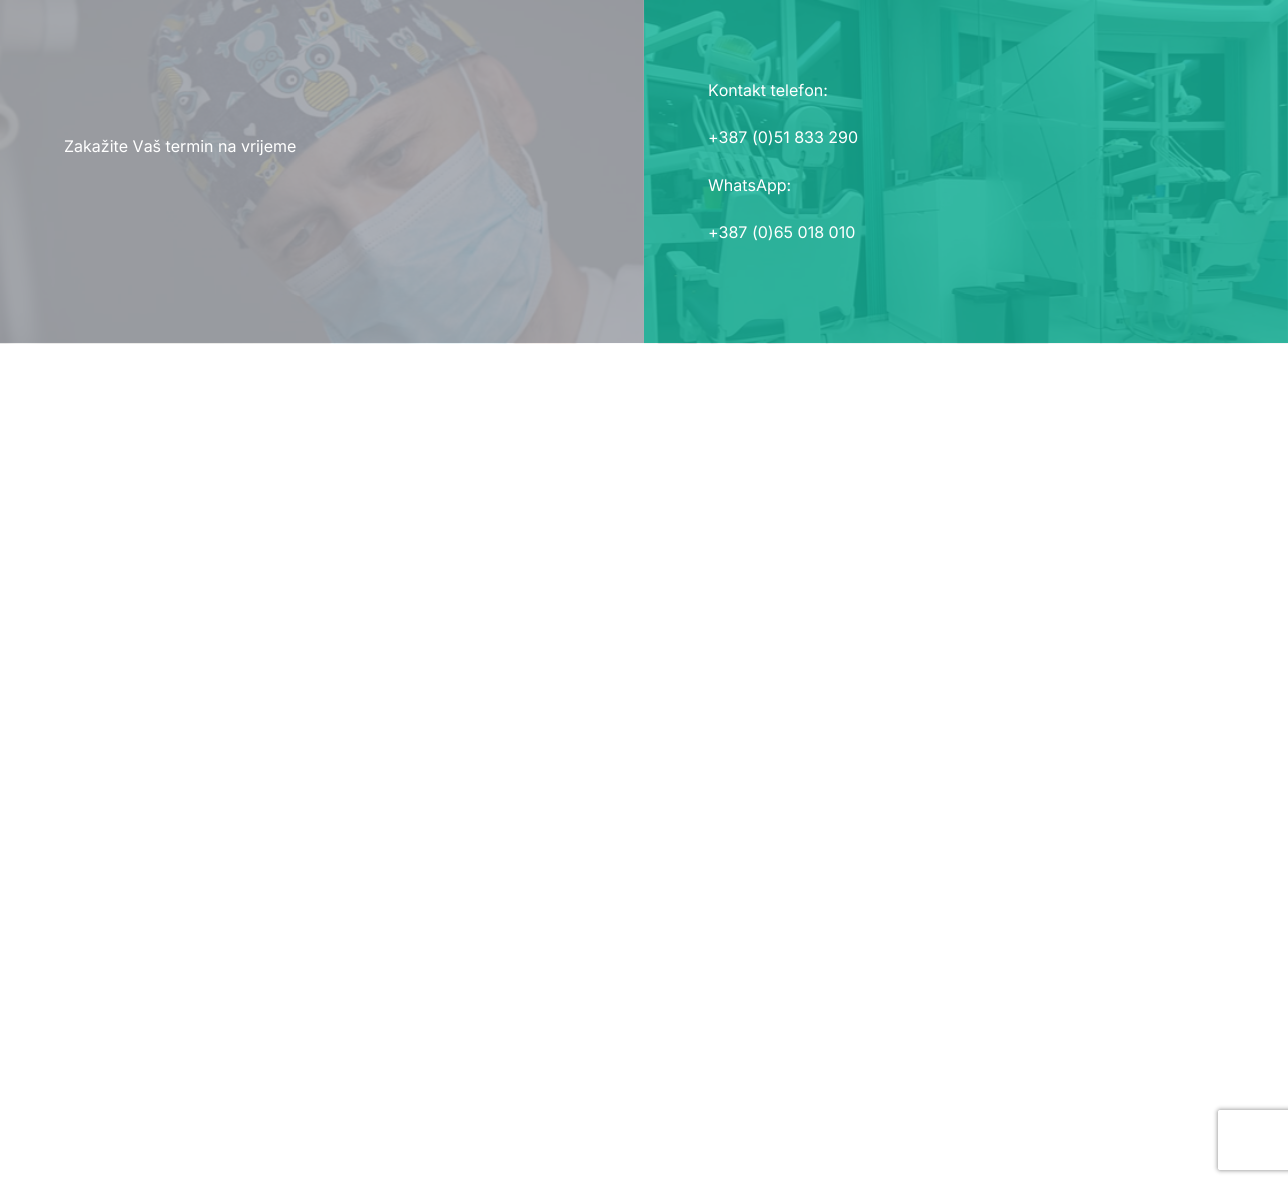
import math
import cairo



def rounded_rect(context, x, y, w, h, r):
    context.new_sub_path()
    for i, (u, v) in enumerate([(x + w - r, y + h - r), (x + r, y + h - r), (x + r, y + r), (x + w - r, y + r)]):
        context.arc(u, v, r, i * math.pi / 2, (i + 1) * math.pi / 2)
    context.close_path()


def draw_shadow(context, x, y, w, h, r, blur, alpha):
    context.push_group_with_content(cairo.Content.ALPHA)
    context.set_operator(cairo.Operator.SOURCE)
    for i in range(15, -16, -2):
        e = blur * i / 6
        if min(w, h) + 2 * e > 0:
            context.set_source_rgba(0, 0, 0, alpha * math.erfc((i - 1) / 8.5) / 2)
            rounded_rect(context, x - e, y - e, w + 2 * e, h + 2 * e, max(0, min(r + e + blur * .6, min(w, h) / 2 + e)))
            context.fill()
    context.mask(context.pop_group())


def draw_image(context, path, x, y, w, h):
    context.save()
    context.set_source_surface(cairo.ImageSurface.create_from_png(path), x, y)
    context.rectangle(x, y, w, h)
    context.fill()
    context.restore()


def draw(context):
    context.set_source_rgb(1, 1, 1)
    context.paint()
    context.set_source_rgb(59 / 255, 191 / 255, 169 / 255)
    context.rectangle(644, 0, 644, 343)
    context.fill()
    context.set_source_rgb(175 / 255, 178 / 255, 184 / 255)
    context.rectangle(0, 0, 644, 343)
    context.fill()
    draw_image(context, "images/1.png", 0, 0, 644, 344)
    draw_image(context, "images/2.png", 644, 0, 644, 344)
    context.save()
    context.set_fill_rule(cairo.FillRule.EVEN_ODD)
    context.new_path()
    context.move_to(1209, 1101)
    context.line_to(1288, 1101)
    context.line_to(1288, 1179)
    context.line_to(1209, 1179)
    context.close_path()
    context.move_to(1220, 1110)
    context.line_to(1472, 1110)
    context.curve_to(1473, 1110, 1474, 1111, 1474, 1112)
    context.line_to(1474, 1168)
    context.curve_to(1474, 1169, 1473, 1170, 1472, 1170)
    context.line_to(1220, 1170)
    context.curve_to(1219, 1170, 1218, 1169, 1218, 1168)
    context.line_to(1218, 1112)
    context.curve_to(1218, 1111, 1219, 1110, 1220, 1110)
    context.close_path()
    context.clip()
    context.set_source_rgb(128 / 255, 128 / 255, 128 / 255)
    draw_shadow(context, 1218, 1110, 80, 60, 2, 2.5, 1)
    context.restore()
    context.select_font_face("Inter")
    context.set_font_size(16)
    context.set_source_rgb(1, 1, 1)
    context.move_to(64, 152)
    context.show_text("Zakažite Vaš termin na vrijeme")
    context.move_to(708, 96)
    context.show_text("Kontakt telefon:")
    context.move_to(708, 143)
    context.show_text("+387 (0)51 833 290")
    context.move_to(708, 191)
    context.show_text("WhatsApp:")
    context.move_to(708, 238)
    context.show_text("+387 (0)65 018 010")


surface = cairo.ImageSurface(cairo.Format.RGB24, 1288, 1184)
context = cairo.Context(surface)
options = cairo.FontOptions()
options.set_hint_metrics(cairo.HintMetrics.OFF)
options.set_hint_style(cairo.HintStyle.NONE)
context.set_font_options(options)
context.set_miter_limit(4)
draw(context)
surface.write_to_png("out.png")
